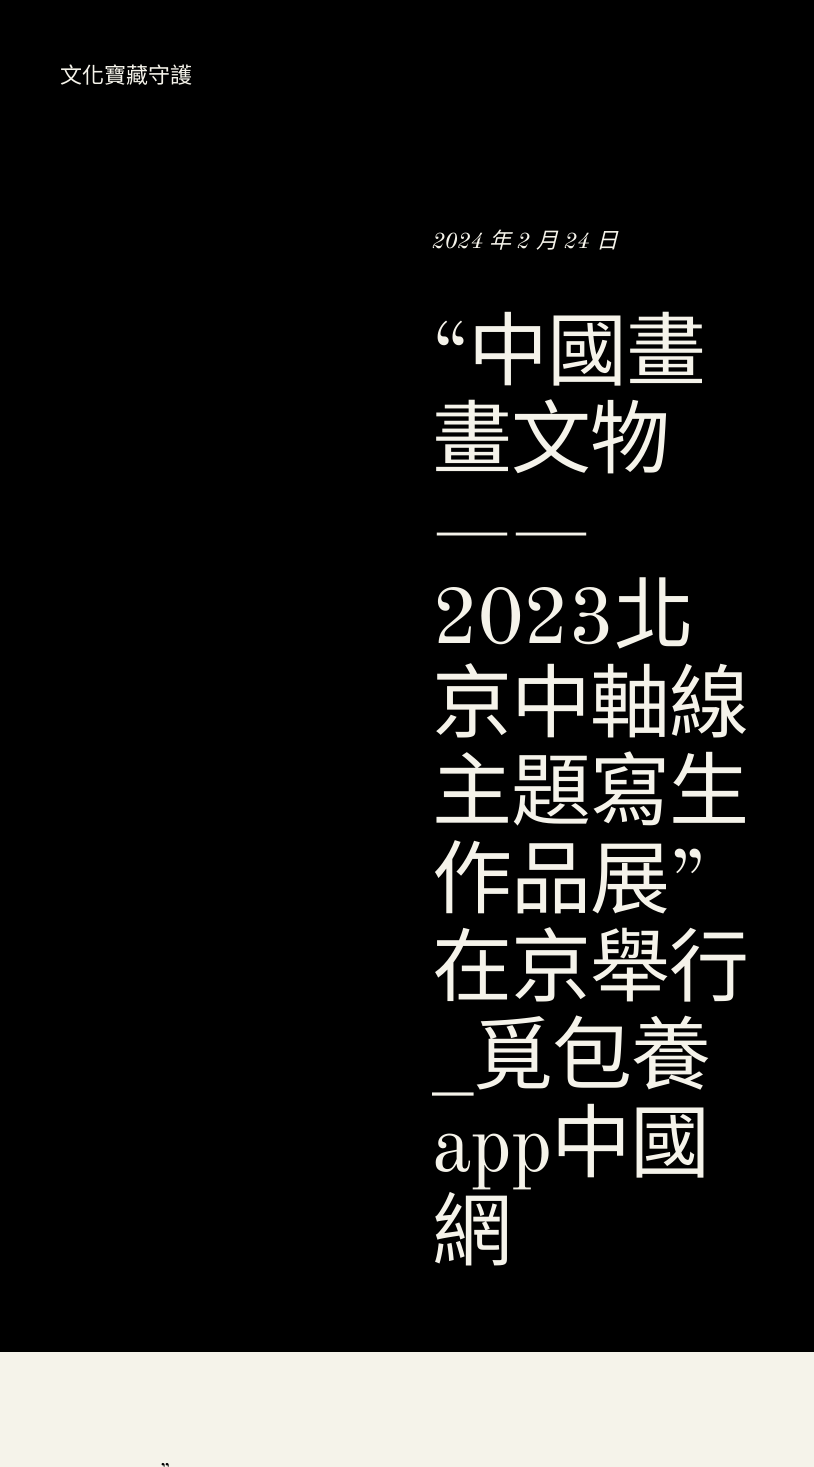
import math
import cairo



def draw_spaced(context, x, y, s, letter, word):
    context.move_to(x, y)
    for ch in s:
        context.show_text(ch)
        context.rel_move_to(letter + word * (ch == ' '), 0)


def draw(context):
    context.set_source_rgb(245 / 255, 243 / 255, 234 / 255)
    context.paint()
    context.set_source_rgb(0, 0, 0)
    context.rectangle(0, 0, 814, 1352)
    context.fill()
    context.select_font_face("Noto Sans CJK TC")
    context.set_font_size(22)
    context.set_source_rgb(245 / 255, 243 / 255, 234 / 255)
    context.move_to(60, 83)
    context.show_text("文化寶藏守護")
    context.select_font_face("Old Standard TT", cairo.FontSlant.ITALIC)
    context.move_to(432, 248)
    context.show_text("2024")
    context.select_font_face("Noto Sans CJK TC", cairo.FontSlant.ITALIC)
    context.move_to(489, 248)
    context.show_text("年")
    context.select_font_face("Old Standard TT", cairo.FontSlant.ITALIC)
    context.move_to(517, 248)
    context.show_text("2")
    context.select_font_face("Noto Sans CJK TC", cairo.FontSlant.ITALIC)
    context.move_to(536, 248)
    context.show_text("月")
    context.select_font_face("Old Standard TT", cairo.FontSlant.ITALIC)
    context.move_to(564, 248)
    context.show_text("24")
    context.select_font_face("Noto Sans CJK TC", cairo.FontSlant.ITALIC)
    context.move_to(596, 248)
    context.show_text("日")
    context.select_font_face("Old Standard TT")
    context.set_font_size(80)
    draw_spaced(context, 432, 379, "“", -1, 0)
    context.select_font_face("Noto Sans CJK TC")
    draw_spaced(context, 468, 379, "中國畫", -1, 0)
    draw_spaced(context, 432, 467, "畫文物", -1, 0)
    context.select_font_face("Old Standard TT")
    draw_spaced(context, 432, 555, "——", -1, 0)
    draw_spaced(context, 432, 643, "2023", -1, 0)
    context.select_font_face("Noto Sans CJK TC")
    draw_spaced(context, 614, 643, "北", -1, 0)
    draw_spaced(context, 432, 731, "京中軸線", -1, 0)
    draw_spaced(context, 432, 819, "主題寫生", -1, 0)
    draw_spaced(context, 432, 907, "作品展", -1, 0)
    context.select_font_face("Old Standard TT")
    draw_spaced(context, 669, 907, "”", -1, 0)
    context.select_font_face("Noto Sans CJK TC")
    draw_spaced(context, 432, 995, "在京舉行", -1, 0)
    draw_spaced(context, 473, 1083, "覓包養", -1, 0)
    context.select_font_face("Old Standard TT")
    draw_spaced(context, 432, 1083, "_", -1, 0)
    draw_spaced(context, 432, 1171, "app", -1, 0)
    context.select_font_face("Noto Sans CJK TC")
    draw_spaced(context, 551, 1171, "中國", -1, 0)
    draw_spaced(context, 432, 1259, "網", -1, 0)
    context.select_font_face("Old Standard TT")
    context.set_font_size(22)
    context.set_source_rgb(0, 0, 0)
    context.move_to(160, 1479)
    context.show_text("”")


surface = cairo.ImageSurface(cairo.Format.RGB24, 814, 1467)
context = cairo.Context(surface)
options = cairo.FontOptions()
options.set_hint_metrics(cairo.HintMetrics.OFF)
options.set_hint_style(cairo.HintStyle.NONE)
context.set_font_options(options)
context.set_miter_limit(4)
draw(context)
surface.write_to_png("out.png")
